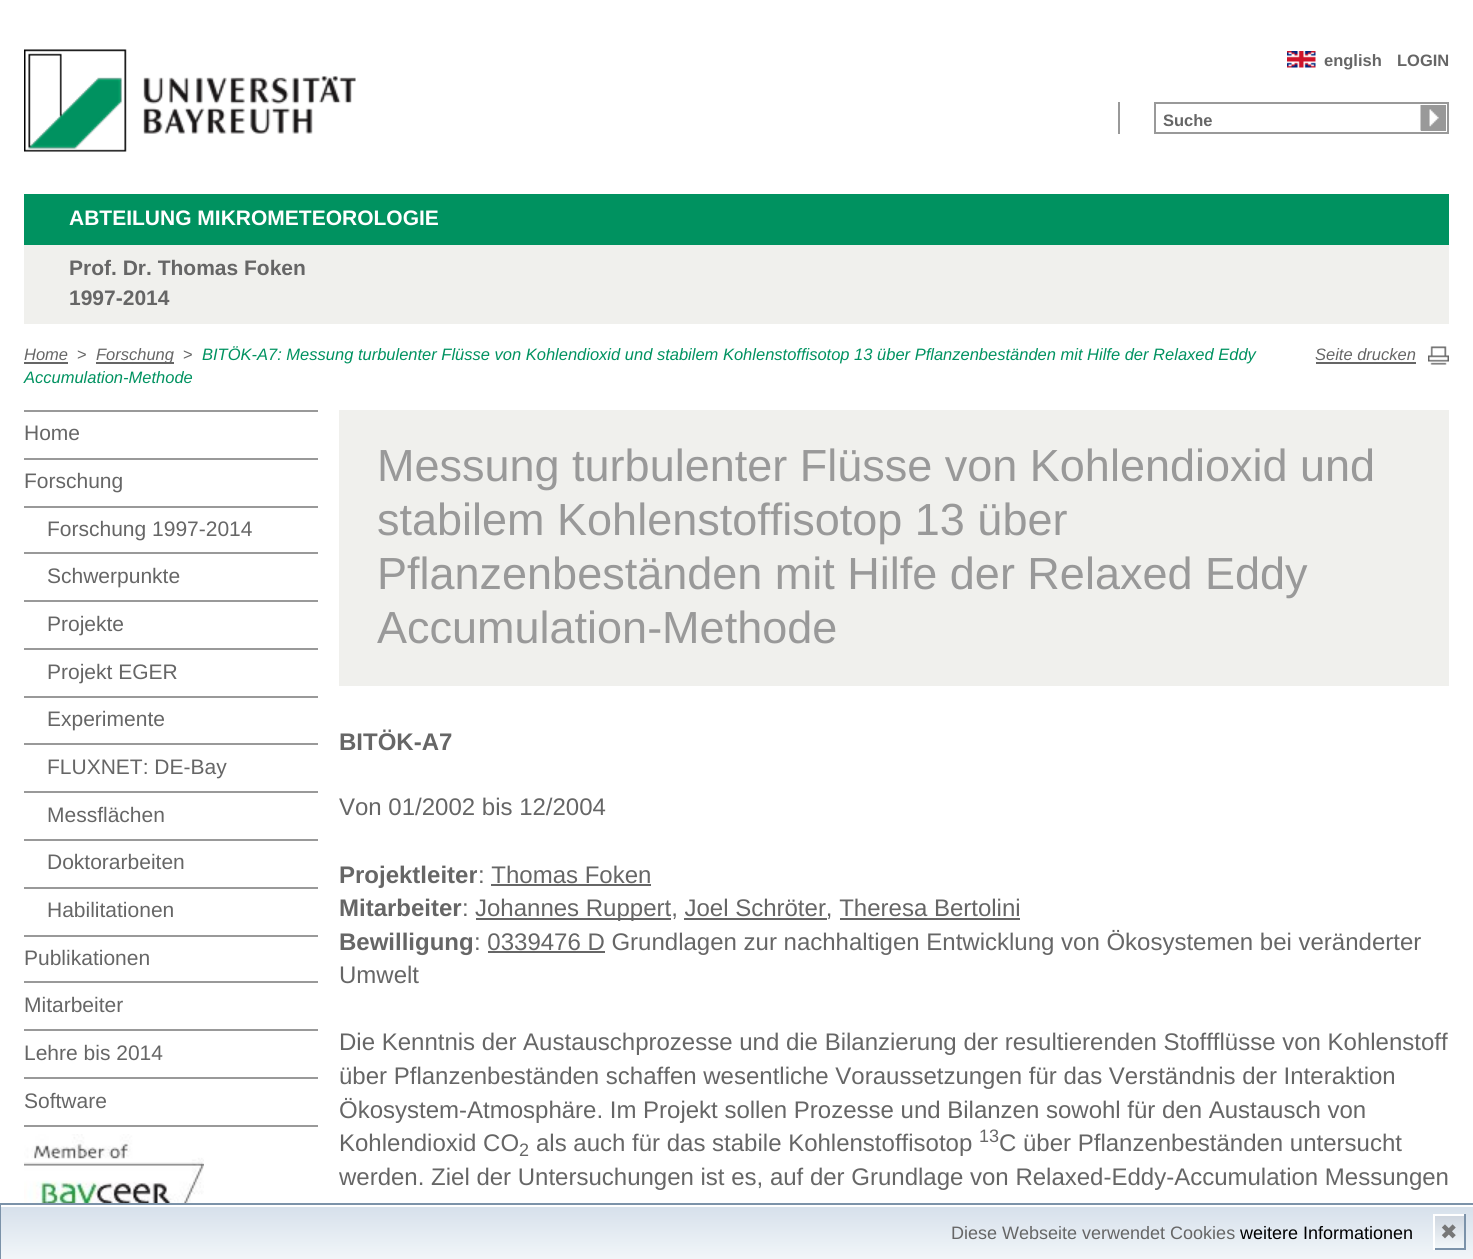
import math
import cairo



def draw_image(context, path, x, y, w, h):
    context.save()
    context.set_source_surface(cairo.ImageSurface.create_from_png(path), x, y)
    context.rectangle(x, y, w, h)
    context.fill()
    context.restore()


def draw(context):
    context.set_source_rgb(1, 1, 1)
    context.paint()
    draw_image(context, "images/1.png", 24, 49, 332, 103)
    draw_image(context, "images/2.png", 1287, 51, 29, 17)
    context.set_source_rgb(153 / 255, 153 / 255, 153 / 255)
    context.rectangle(1118, 102, 2, 32)
    context.fill()
    context.rectangle(1155, 103, 293, 30)
    context.stroke()
    context.rectangle(1421, 105, 25, 26)
    context.fill()
    draw_image(context, "images/3.png", 1420, 105, 19, 26)
    context.set_source_rgb(0, 146 / 255, 96 / 255)
    context.rectangle(24, 194, 1425, 51)
    context.fill()
    context.set_source_rgb(240 / 255, 240 / 255, 237 / 255)
    context.rectangle(24, 245, 1425, 79)
    context.fill()
    context.set_source_rgb(102 / 255, 102 / 255, 102 / 255)
    context.rectangle(24, 362, 44, 2)
    context.fill()
    context.rectangle(96, 362, 78, 2)
    context.fill()
    draw_image(context, "images/4.png", 1428, 346, 21, 19)
    context.rectangle(1316, 362, 100, 2)
    context.fill()
    context.set_source_rgb(153 / 255, 153 / 255, 153 / 255)
    context.rectangle(24, 410, 294, 2)
    context.fill()
    context.rectangle(24, 458, 294, 2)
    context.fill()
    context.rectangle(24, 506, 294, 2)
    context.fill()
    context.rectangle(24, 552, 294, 2)
    context.fill()
    context.rectangle(24, 600, 294, 2)
    context.fill()
    context.rectangle(24, 648, 294, 2)
    context.fill()
    context.rectangle(24, 696, 294, 2)
    context.fill()
    context.rectangle(24, 743, 294, 2)
    context.fill()
    context.rectangle(24, 791, 294, 2)
    context.fill()
    context.rectangle(24, 839, 294, 2)
    context.fill()
    context.rectangle(24, 887, 294, 2)
    context.fill()
    context.rectangle(24, 935, 294, 2)
    context.fill()
    context.rectangle(24, 981, 294, 2)
    context.fill()
    context.rectangle(24, 1029, 294, 2)
    context.fill()
    context.rectangle(24, 1077, 294, 2)
    context.fill()
    context.rectangle(24, 1125, 294, 2)
    context.fill()
    draw_image(context, "images/5.png", 24, 1134, 180, 69)
    context.set_source_rgb(240 / 255, 240 / 255, 237 / 255)
    context.rectangle(339, 410, 1110, 276)
    context.fill()
    context.set_source_rgb(102 / 255, 102 / 255, 102 / 255)
    context.rectangle(491, 884, 160, 2)
    context.fill()
    context.rectangle(476, 918, 195, 2)
    context.fill()
    context.rectangle(684, 918, 143, 2)
    context.fill()
    context.rectangle(840, 918, 180, 2)
    context.fill()
    context.rectangle(488, 951, 117, 2)
    context.fill()
    gradient = cairo.LinearGradient(737, 1206, 737, 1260)
    gradient.add_color_stop_rgba(0, 214 / 255, 224 / 255, 235 / 255, 1)
    gradient.add_color_stop_rgba(1, 242 / 255, 246 / 255, 249 / 255, 1)
    context.set_source(gradient)
    context.rectangle(1, 1207, 1472, 52)
    context.fill()
    context.rectangle(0, 1204, 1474, 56)
    context.set_source_rgb(123 / 255, 146 / 255, 169 / 255)
    context.stroke()
    gradient = cairo.LinearGradient(1449, 1215, 1449, 1248)
    gradient.add_color_stop_rgba(0, 206 / 255, 214 / 255, 223 / 255, 1)
    gradient.add_color_stop_rgba(1, 242 / 255, 246 / 255, 249 / 255, 1)
    context.set_source(gradient)
    context.rectangle(1435, 1216, 29, 32)
    context.fill()
    context.set_source_rgb(1, 1, 1)
    context.rectangle(1433, 1214, 33, 2)
    context.fill()
    context.set_source_rgb(123 / 255, 146 / 255, 169 / 255)
    context.rectangle(1464, 1214, 2, 36)
    context.fill()
    context.rectangle(1433, 1248, 33, 2)
    context.fill()
    context.set_source_rgb(1, 1, 1)
    context.rectangle(1433, 1214, 2, 36)
    context.fill()
    context.select_font_face("Liberation Sans", cairo.FontSlant.NORMAL, cairo.FontWeight.BOLD)
    context.set_font_size(16.5)
    context.set_source_rgb(102 / 255, 102 / 255, 102 / 255)
    context.move_to(1324, 66)
    context.show_text("english")
    context.move_to(1397, 66)
    context.show_text("LOGIN")
    context.move_to(1163, 126)
    context.show_text("Suche")
    context.set_font_size(21)
    context.set_source_rgb(1, 1, 1)
    context.move_to(69, 225)
    context.show_text("ABTEILUNG MIKROMETEOROLOGIE")
    context.set_source_rgb(102 / 255, 102 / 255, 102 / 255)
    context.move_to(69, 275)
    context.show_text("Prof. Dr. Thomas Foken")
    context.move_to(69, 305)
    context.show_text("1997-2014")
    context.select_font_face("Liberation Sans", cairo.FontSlant.ITALIC)
    context.set_font_size(16.5)
    context.move_to(24, 360)
    context.show_text("Home")
    context.select_font_face("Liberation Sans")
    context.move_to(77, 360)
    context.show_text(">")
    context.select_font_face("Liberation Sans", cairo.FontSlant.ITALIC)
    context.move_to(96, 360)
    context.show_text("Forschung")
    context.select_font_face("Liberation Sans")
    context.move_to(183, 360)
    context.show_text(">")
    context.select_font_face("Liberation Sans", cairo.FontSlant.ITALIC)
    context.set_source_rgb(0, 146 / 255, 96 / 255)
    context.move_to(202, 360)
    context.show_text("BITÖK-A7: Messung turbulenter Flüsse von Kohlendioxid und stabilem Kohlenstoffisotop 13 über Pflanzenbeständen mit Hilfe der Relaxed Eddy")
    context.move_to(24, 383)
    context.show_text("Accumulation-Methode")
    context.set_source_rgb(102 / 255, 102 / 255, 102 / 255)
    context.move_to(1315, 360)
    context.show_text("Seite drucken")
    context.select_font_face("Liberation Sans")
    context.set_font_size(21)
    context.move_to(24, 440)
    context.show_text("Home")
    context.move_to(24, 488)
    context.show_text("Forschung")
    context.move_to(47, 536)
    context.show_text("Forschung 1997-2014")
    context.move_to(47, 583)
    context.show_text("Schwerpunkte")
    context.move_to(47, 631)
    context.show_text("Projekte")
    context.move_to(47, 679)
    context.show_text("Projekt EGER")
    context.move_to(47, 726)
    context.show_text("Experimente")
    context.move_to(47, 774)
    context.show_text("FLUXNET: DE-Bay")
    context.move_to(47, 822)
    context.show_text("Messflächen")
    context.move_to(47, 869)
    context.show_text("Doktorarbeiten")
    context.move_to(47, 917)
    context.show_text("Habilitationen")
    context.move_to(24, 965)
    context.show_text("Publikationen")
    context.move_to(24, 1012)
    context.show_text("Mitarbeiter")
    context.move_to(24, 1060)
    context.show_text("Lehre bis 2014")
    context.move_to(24, 1108)
    context.show_text("Software")
    context.set_font_size(45)
    context.set_source_rgb(153 / 255, 153 / 255, 153 / 255)
    context.move_to(377, 481)
    context.show_text("Messung turbulenter Flüsse von Kohlendioxid und")
    context.move_to(377, 535)
    context.show_text("stabilem Kohlenstoffisotop 13 über")
    context.move_to(377, 589)
    context.show_text("Pflanzenbeständen mit Hilfe der Relaxed Eddy")
    context.move_to(377, 643)
    context.show_text("Accumulation-Methode")
    context.select_font_face("Liberation Sans", cairo.FontSlant.NORMAL, cairo.FontWeight.BOLD)
    context.set_font_size(24)
    context.set_source_rgb(102 / 255, 102 / 255, 102 / 255)
    context.move_to(339, 750)
    context.show_text("BITÖK-A7")
    context.select_font_face("Liberation Sans")
    context.move_to(339, 815)
    context.show_text("Von 01/2002 bis 12/2004")
    context.select_font_face("Liberation Sans", cairo.FontSlant.NORMAL, cairo.FontWeight.BOLD)
    context.move_to(339, 883)
    context.show_text("Projektleiter")
    context.select_font_face("Liberation Sans")
    context.move_to(478, 883)
    context.show_text(": Thomas Foken")
    context.select_font_face("Liberation Sans", cairo.FontSlant.NORMAL, cairo.FontWeight.BOLD)
    context.move_to(339, 916)
    context.show_text("Mitarbeiter")
    context.select_font_face("Liberation Sans")
    context.move_to(462, 916)
    context.show_text(":")
    context.move_to(475, 916)
    context.show_text("Johannes Ruppert, Joel Schröter, Theresa Bertolini")
    context.select_font_face("Liberation Sans", cairo.FontSlant.NORMAL, cairo.FontWeight.BOLD)
    context.move_to(339, 950)
    context.show_text("Bewilligung")
    context.select_font_face("Liberation Sans")
    context.move_to(474, 950)
    context.show_text(": 0339476 D Grundlagen zur nachhaltigen Entwicklung von Ökosystemen bei veränderter")
    context.move_to(339, 983)
    context.show_text("Umwelt")
    context.move_to(339, 1050)
    context.show_text("Die Kenntnis der Austauschprozesse und die Bilanzierung der resultierenden Stoffflüsse von Kohlenstoff")
    context.move_to(339, 1084)
    context.show_text("über Pflanzenbeständen schaffen wesentliche Voraussetzungen für das Verständnis der Interaktion")
    context.move_to(339, 1118)
    context.show_text("Ökosystem-Atmosphäre. Im Projekt sollen Prozesse und Bilanzen sowohl für den Austausch von")
    context.move_to(339, 1151)
    context.show_text("Kohlendioxid CO")
    context.set_font_size(18)
    context.move_to(519, 1156)
    context.show_text("2")
    context.set_font_size(24)
    context.move_to(536, 1151)
    context.show_text("als auch für das stabile Kohlenstoffisotop")
    context.set_font_size(18)
    context.move_to(979, 1142)
    context.show_text("13")
    context.set_font_size(24)
    context.move_to(999, 1151)
    context.show_text("C über Pflanzenbeständen untersucht")
    context.move_to(339, 1185)
    context.show_text("werden. Ziel der Untersuchungen ist es, auf der Grundlage von Relaxed-Eddy-Accumulation Messungen")
    context.set_font_size(18)
    context.move_to(951, 1239)
    context.show_text("Diese Webseite verwendet Cookies")
    context.set_source_rgb(0, 0, 0)
    context.move_to(1240, 1239)
    context.show_text("weitere Informationen")
    context.select_font_face("DejaVu Sans")
    context.set_font_size(21)
    context.set_source_rgb(119 / 255, 119 / 255, 119 / 255)
    context.move_to(1440, 1239)
    context.show_text("✖")


surface = cairo.ImageSurface(cairo.Format.RGB24, 1473, 1259)
context = cairo.Context(surface)
options = cairo.FontOptions()
options.set_hint_metrics(cairo.HintMetrics.OFF)
options.set_hint_style(cairo.HintStyle.NONE)
context.set_font_options(options)
context.set_miter_limit(4)
draw(context)
surface.write_to_png("out.png")
